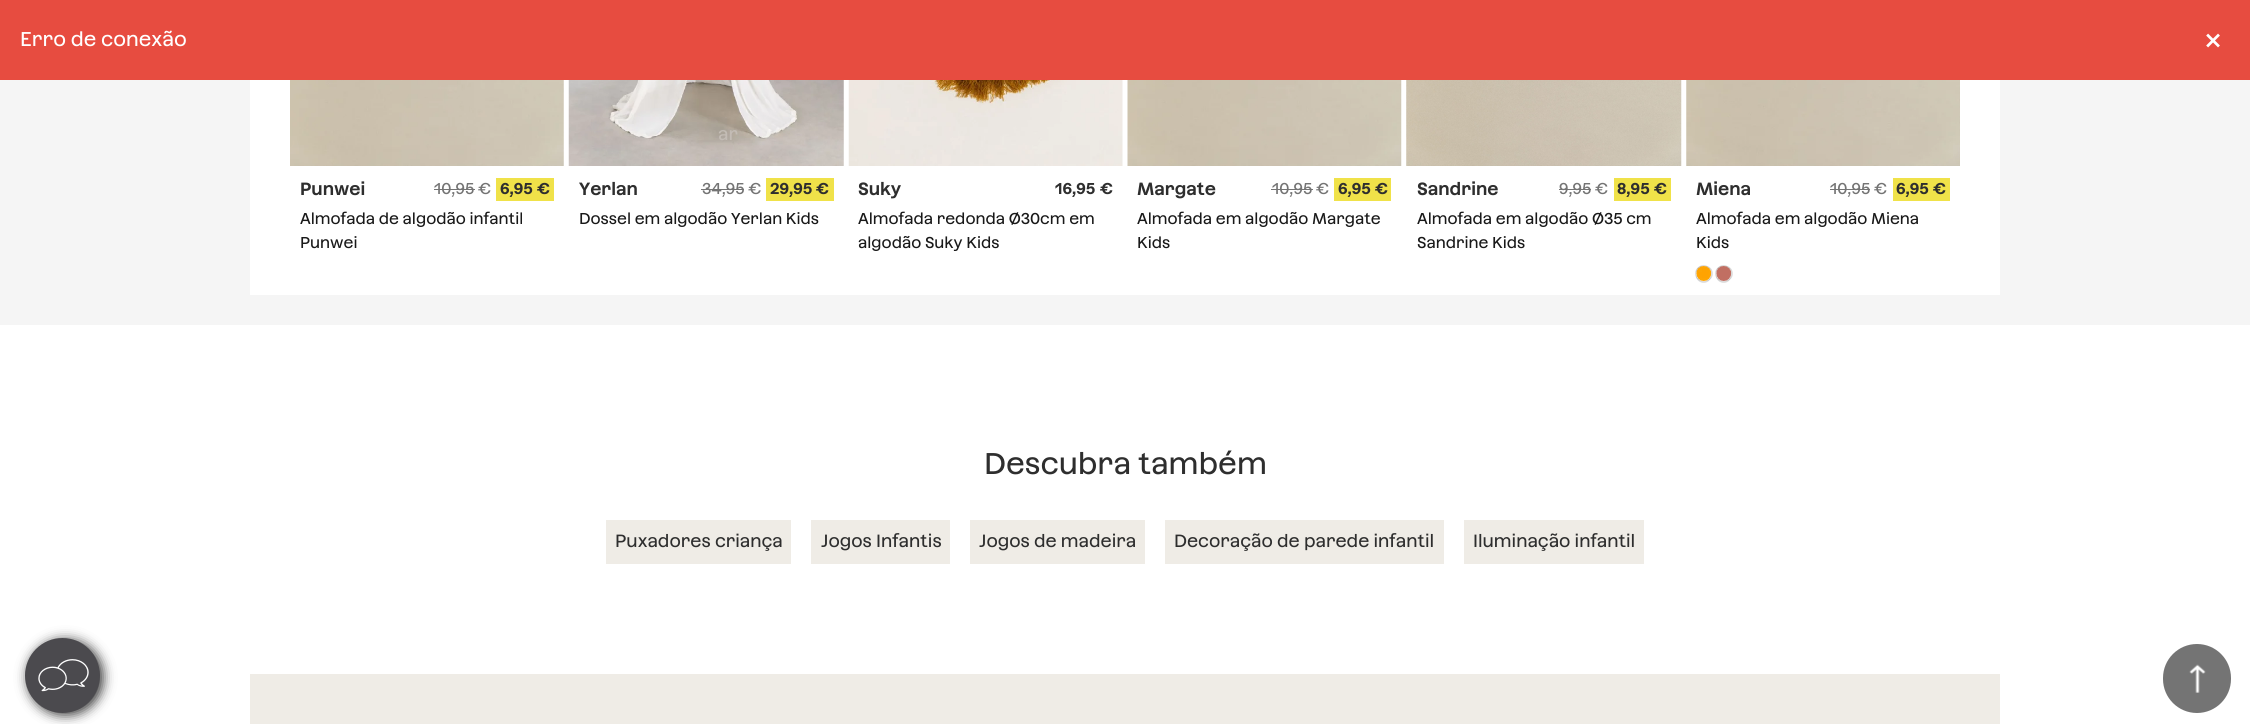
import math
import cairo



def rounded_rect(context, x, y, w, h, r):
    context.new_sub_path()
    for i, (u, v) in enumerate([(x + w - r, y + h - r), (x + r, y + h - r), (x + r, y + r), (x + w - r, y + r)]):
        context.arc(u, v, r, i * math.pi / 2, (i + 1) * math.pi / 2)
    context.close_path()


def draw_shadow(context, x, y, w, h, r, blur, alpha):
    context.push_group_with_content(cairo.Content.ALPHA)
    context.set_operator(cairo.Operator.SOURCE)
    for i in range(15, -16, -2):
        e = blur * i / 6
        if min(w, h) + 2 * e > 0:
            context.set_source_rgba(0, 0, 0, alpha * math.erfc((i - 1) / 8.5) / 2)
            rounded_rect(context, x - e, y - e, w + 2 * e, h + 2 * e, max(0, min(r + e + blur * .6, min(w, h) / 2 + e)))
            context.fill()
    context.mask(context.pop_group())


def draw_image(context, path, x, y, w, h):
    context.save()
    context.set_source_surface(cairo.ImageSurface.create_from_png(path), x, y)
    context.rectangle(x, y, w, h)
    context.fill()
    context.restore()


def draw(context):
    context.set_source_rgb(1, 1, 1)
    context.paint()
    context.set_source_rgb(231 / 255, 76 / 255, 64 / 255)
    context.rectangle(0, 0, 2250, 80)
    context.fill()
    context.set_source_rgb(245 / 255, 245 / 255, 245 / 255)
    context.rectangle(0, 80, 2250, 245)
    context.fill()
    context.set_source_rgb(1, 1, 1)
    context.rectangle(250, 80, 1750, 215)
    context.fill()
    draw_image(context, "images/1.png", 290, 80, 274, 86)
    context.set_source_rgb(116 / 255, 116 / 255, 116 / 255)
    context.rectangle(434, 189, 41, 1)
    context.fill()
    context.set_source_rgb(240 / 255, 226 / 255, 73 / 255)
    context.rectangle(496, 178, 58, 23)
    context.fill()
    draw_image(context, "images/2.png", 568, 80, 276, 86)
    context.set_source_rgb(116 / 255, 116 / 255, 116 / 255)
    context.rectangle(701, 189, 43, 1)
    context.fill()
    context.set_source_rgb(240 / 255, 226 / 255, 73 / 255)
    context.rectangle(766, 178, 68, 23)
    context.fill()
    draw_image(context, "images/3.png", 848, 80, 275, 86)
    draw_image(context, "images/4.png", 1127, 80, 275, 86)
    context.set_source_rgb(116 / 255, 116 / 255, 116 / 255)
    context.rectangle(1271, 189, 42, 1)
    context.fill()
    context.set_source_rgb(240 / 255, 226 / 255, 73 / 255)
    context.rectangle(1334, 178, 57, 23)
    context.fill()
    draw_image(context, "images/5.png", 1406, 80, 276, 86)
    context.set_source_rgb(116 / 255, 116 / 255, 116 / 255)
    context.rectangle(1559, 189, 32, 1)
    context.fill()
    context.set_source_rgb(240 / 255, 226 / 255, 73 / 255)
    context.rectangle(1614, 178, 57, 23)
    context.fill()
    draw_image(context, "images/6.png", 1686, 80, 274, 86)
    context.set_source_rgb(116 / 255, 116 / 255, 116 / 255)
    context.rectangle(1830, 189, 40, 1)
    context.fill()
    context.set_source_rgb(240 / 255, 226 / 255, 73 / 255)
    context.rectangle(1893, 178, 57, 23)
    context.fill()
    context.set_source_rgb(220 / 255, 220 / 255, 220 / 255)
    context.new_path()
    context.move_to(1703.5, 265)
    context.curve_to(1698.5, 265, 1695, 270, 1696.5, 274.5)
    context.curve_to(1695.5, 265.5, 1708.5, 263, 1711, 271.5)
    context.curve_to(1710.5, 268, 1707.5, 265, 1703.5, 265)
    context.close_path()
    context.fill()
    context.set_source_rgba(19 / 255, 19 / 255, 19 / 255, 0.15)
    context.new_path()
    context.move_to(1705.5, 266)
    context.line_to(1703.5, 266.5)
    context.curve_to(1712.5, 266, 1714, 279, 1705.5, 281)
    context.curve_to(1715.5, 281, 1715, 266, 1705.5, 266)
    context.close_path()
    context.fill()
    context.new_path()
    context.move_to(1696.5, 273.5)
    context.curve_to(1693.5, 284, 1710.5, 287, 1711, 275.5)
    context.curve_to(1709, 284, 1696, 282.5, 1696.5, 273.5)
    context.close_path()
    context.fill()
    context.new_path()
    context.move_to(1702.5, 266)
    context.curve_to(1693, 266, 1692.5, 280, 1701.5, 281)
    context.curve_to(1693, 278.5, 1695.5, 265.5, 1704.5, 266.5)
    context.close_path()
    context.fill()
    draw_image(context, "images/7.png", 1696, 266, 16, 15)
    context.set_source_rgb(220 / 255, 220 / 255, 220 / 255)
    context.new_path()
    context.move_to(1723.5, 265)
    context.curve_to(1718.5, 265, 1715, 270, 1716.5, 274.5)
    context.curve_to(1715.5, 265.5, 1728.5, 263, 1731, 271.5)
    context.curve_to(1730.5, 268, 1727.5, 265, 1723.5, 265)
    context.close_path()
    context.fill()
    context.set_source_rgba(19 / 255, 19 / 255, 19 / 255, 0.15)
    context.new_path()
    context.move_to(1725.5, 266)
    context.line_to(1723.5, 266.5)
    context.curve_to(1732.5, 266, 1734, 279, 1725.5, 281)
    context.curve_to(1735.5, 281, 1735, 266, 1725.5, 266)
    context.close_path()
    context.fill()
    context.new_path()
    context.move_to(1716.5, 273.5)
    context.curve_to(1713.5, 284, 1730.5, 287, 1731, 275.5)
    context.curve_to(1729, 284, 1716, 282.5, 1716.5, 273.5)
    context.close_path()
    context.fill()
    context.new_path()
    context.move_to(1722.5, 266)
    context.curve_to(1713, 266, 1712.5, 280, 1721.5, 281)
    context.curve_to(1713, 278.5, 1715.5, 265.5, 1724.5, 266.5)
    context.close_path()
    context.fill()
    draw_image(context, "images/8.png", 1716, 266, 16, 15)
    context.set_source_rgb(239 / 255, 236 / 255, 230 / 255)
    context.rectangle(606, 520, 185, 44)
    context.fill()
    context.rectangle(811, 520, 139, 44)
    context.fill()
    context.rectangle(970, 520, 175, 44)
    context.fill()
    context.rectangle(1165, 520, 279, 44)
    context.fill()
    context.rectangle(1464, 520, 180, 44)
    context.fill()
    context.rectangle(250, 674, 1750, 50)
    context.fill()
    context.set_source_rgb(51 / 255, 51 / 255, 51 / 255)
    draw_shadow(context, 28, 640, 75, 75, 37.5, 6, 1)
    context.set_source_rgb(75 / 255, 74 / 255, 78 / 255)
    context.arc(62.5, 675.5, 37.5, 0, 2 * math.pi)
    context.fill()
    draw_image(context, "images/9.png", 38, 659, 51, 33)
    context.set_source_rgb(116 / 255, 116 / 255, 116 / 255)
    rounded_rect(context, 2163, 644, 68, 69, 34)
    context.fill()
    draw_image(context, "images/10.png", 2189, 664, 17, 29)
    context.select_font_face("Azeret")
    context.set_font_size(20)
    context.set_source_rgb(1, 1, 1)
    context.move_to(20, 46)
    context.show_text("Erro de conexão")
    context.set_font_size(31)
    context.move_to(2204, 50)
    context.show_text("×")
    context.select_font_face("Azeret SemiBold")
    context.set_font_size(17.75)
    context.set_source_rgb(46 / 255, 46 / 255, 46 / 255)
    context.move_to(300, 195)
    context.show_text("Punwei")
    context.select_font_face("Azeret")
    context.set_font_size(15.75)
    context.set_source_rgb(116 / 255, 116 / 255, 116 / 255)
    context.move_to(434, 194)
    context.show_text("10,95 €")
    context.select_font_face("Azeret SemiBold")
    context.set_source_rgb(46 / 255, 46 / 255, 46 / 255)
    context.move_to(500, 194)
    context.show_text("6,95")
    context.move_to(537, 194)
    context.show_text("€")
    context.select_font_face("Azeret")
    context.set_source_rgb(25 / 255, 25 / 255, 25 / 255)
    context.move_to(300, 224)
    context.show_text("Almofada de algodão infantil")
    context.move_to(300, 248)
    context.show_text("Punwei")
    context.set_font_size(17.75)
    context.set_source_rgb(195 / 255, 188 / 255, 181 / 255)
    context.move_to(718, 140)
    context.show_text("ar")
    context.select_font_face("Azeret SemiBold")
    context.set_source_rgb(46 / 255, 46 / 255, 46 / 255)
    context.move_to(579, 195)
    context.show_text("Yerlan")
    context.select_font_face("Azeret")
    context.set_font_size(15.75)
    context.set_source_rgb(116 / 255, 116 / 255, 116 / 255)
    context.move_to(702, 194)
    context.show_text("34,95 €")
    context.select_font_face("Azeret SemiBold")
    context.set_source_rgb(46 / 255, 46 / 255, 46 / 255)
    context.move_to(770, 194)
    context.show_text("29,95")
    context.move_to(816, 194)
    context.show_text("€")
    context.select_font_face("Azeret")
    context.set_source_rgb(25 / 255, 25 / 255, 25 / 255)
    context.move_to(579, 224)
    context.show_text("Dossel em algodão Yerlan Kids")
    context.select_font_face("Azeret SemiBold")
    context.set_font_size(17.75)
    context.set_source_rgb(46 / 255, 46 / 255, 46 / 255)
    context.move_to(858, 195)
    context.show_text("Suky")
    context.set_font_size(15.75)
    context.move_to(1055, 194)
    context.show_text("16,95")
    context.move_to(1100, 194)
    context.show_text("€")
    context.select_font_face("Azeret")
    context.set_source_rgb(25 / 255, 25 / 255, 25 / 255)
    context.move_to(858, 224)
    context.show_text("Almofada redonda Ø30cm em")
    context.move_to(858, 248)
    context.show_text("algodão Suky Kids")
    context.select_font_face("Azeret SemiBold")
    context.set_font_size(17.75)
    context.set_source_rgb(46 / 255, 46 / 255, 46 / 255)
    context.move_to(1137, 195)
    context.show_text("Margate")
    context.select_font_face("Azeret")
    context.set_font_size(15.75)
    context.set_source_rgb(116 / 255, 116 / 255, 116 / 255)
    context.move_to(1272, 194)
    context.show_text("10,95 €")
    context.select_font_face("Azeret SemiBold")
    context.set_source_rgb(46 / 255, 46 / 255, 46 / 255)
    context.move_to(1338, 194)
    context.show_text("6,95")
    context.move_to(1375, 194)
    context.show_text("€")
    context.select_font_face("Azeret")
    context.set_source_rgb(25 / 255, 25 / 255, 25 / 255)
    context.move_to(1137, 224)
    context.show_text("Almofada em algodão Margate")
    context.move_to(1137, 248)
    context.show_text("Kids")
    context.select_font_face("Azeret SemiBold")
    context.set_font_size(17.75)
    context.set_source_rgb(46 / 255, 46 / 255, 46 / 255)
    context.move_to(1417, 195)
    context.show_text("Sandrine")
    context.select_font_face("Azeret")
    context.set_font_size(15.75)
    context.set_source_rgb(116 / 255, 116 / 255, 116 / 255)
    context.move_to(1559, 194)
    context.show_text("9,95 €")
    context.select_font_face("Azeret SemiBold")
    context.set_source_rgb(46 / 255, 46 / 255, 46 / 255)
    context.move_to(1617, 194)
    context.show_text("8,95")
    context.move_to(1654, 194)
    context.show_text("€")
    context.select_font_face("Azeret")
    context.set_source_rgb(25 / 255, 25 / 255, 25 / 255)
    context.move_to(1417, 224)
    context.show_text("Almofada em algodão Ø35 cm")
    context.move_to(1417, 248)
    context.show_text("Sandrine Kids")
    context.select_font_face("Azeret SemiBold")
    context.set_font_size(17.75)
    context.set_source_rgb(46 / 255, 46 / 255, 46 / 255)
    context.move_to(1696, 195)
    context.show_text("Miena")
    context.select_font_face("Azeret")
    context.set_font_size(15.75)
    context.set_source_rgb(116 / 255, 116 / 255, 116 / 255)
    context.move_to(1830, 194)
    context.show_text("10,95 €")
    context.select_font_face("Azeret SemiBold")
    context.set_source_rgb(46 / 255, 46 / 255, 46 / 255)
    context.move_to(1896, 194)
    context.show_text("6,95")
    context.move_to(1933, 194)
    context.show_text("€")
    context.select_font_face("Azeret")
    context.set_source_rgb(25 / 255, 25 / 255, 25 / 255)
    context.move_to(1696, 224)
    context.show_text("Almofada em algodão Miena")
    context.move_to(1696, 248)
    context.show_text("Kids")
    context.set_font_size(30)
    context.set_source_rgb(46 / 255, 46 / 255, 46 / 255)
    context.move_to(984, 474)
    context.show_text("Descubra também")
    context.set_font_size(17.75)
    context.move_to(615, 547)
    context.show_text("Puxadores criança")
    context.move_to(821, 547)
    context.show_text("Jogos Infantis")
    context.move_to(979, 547)
    context.show_text("Jogos de madeira")
    context.move_to(1174, 547)
    context.show_text("Decoração de parede infantil")
    context.move_to(1473, 547)
    context.show_text("Iluminação infantil")


surface = cairo.ImageSurface(cairo.Format.RGB24, 2250, 724)
context = cairo.Context(surface)
options = cairo.FontOptions()
options.set_hint_metrics(cairo.HintMetrics.OFF)
options.set_hint_style(cairo.HintStyle.NONE)
context.set_font_options(options)
context.set_miter_limit(4)
draw(context)
surface.write_to_png("out.png")
